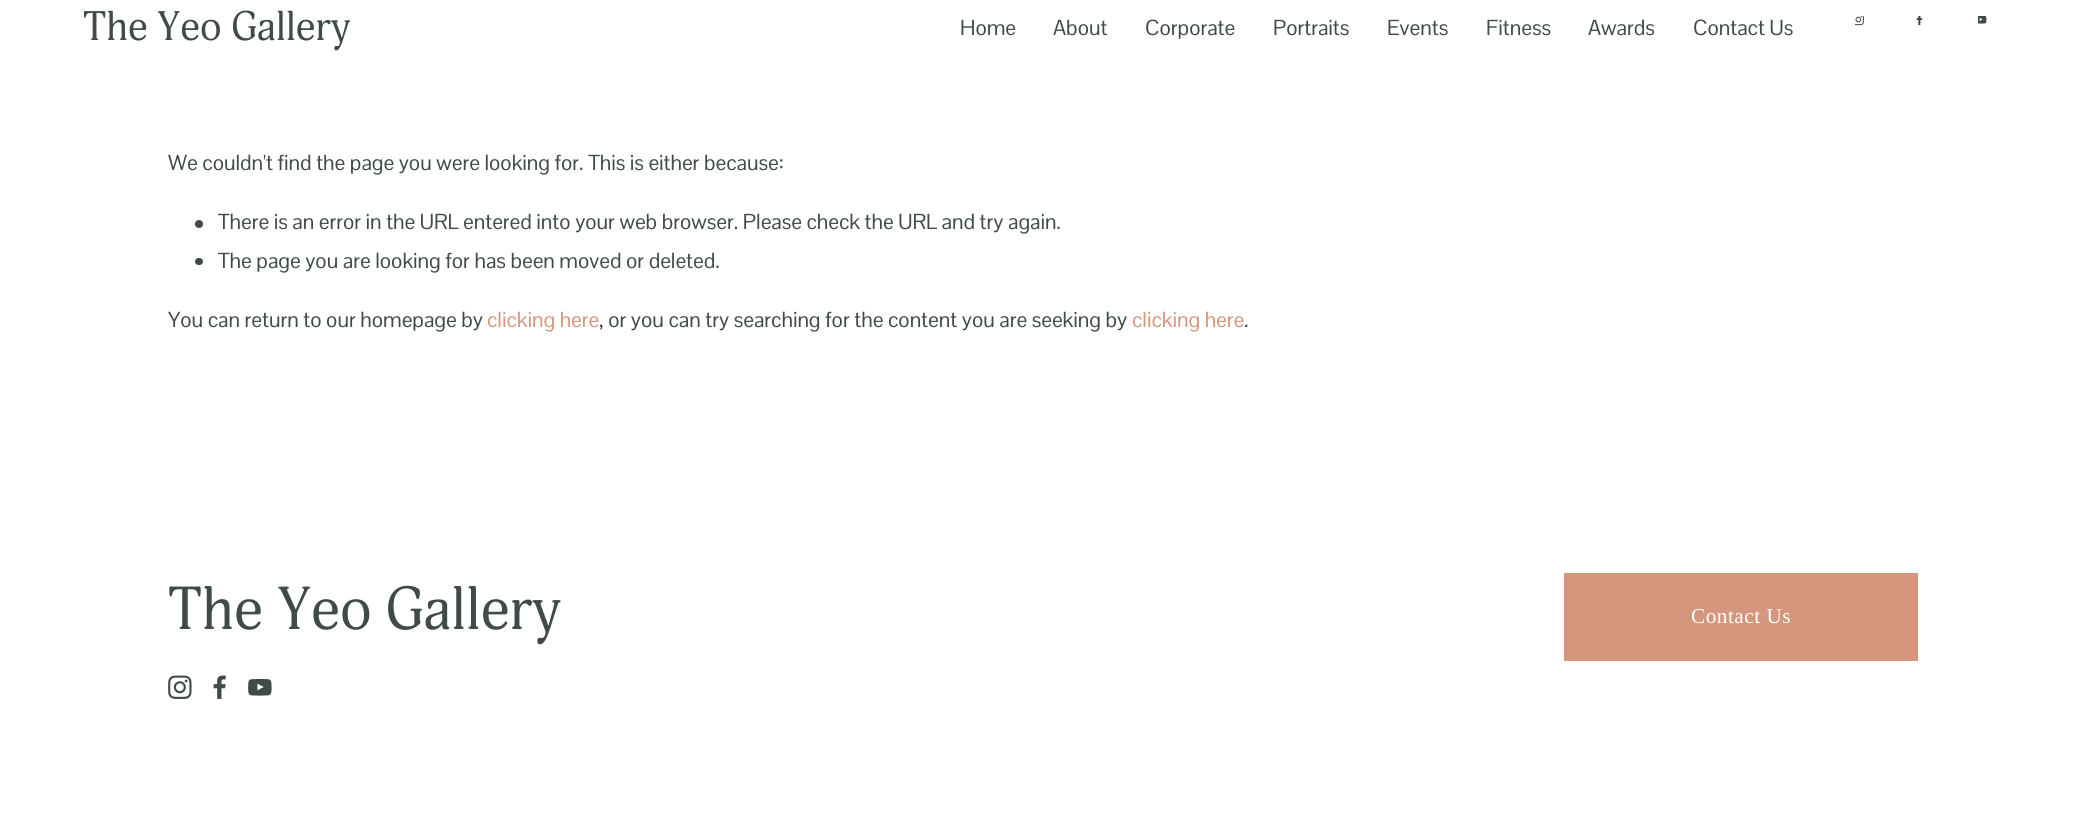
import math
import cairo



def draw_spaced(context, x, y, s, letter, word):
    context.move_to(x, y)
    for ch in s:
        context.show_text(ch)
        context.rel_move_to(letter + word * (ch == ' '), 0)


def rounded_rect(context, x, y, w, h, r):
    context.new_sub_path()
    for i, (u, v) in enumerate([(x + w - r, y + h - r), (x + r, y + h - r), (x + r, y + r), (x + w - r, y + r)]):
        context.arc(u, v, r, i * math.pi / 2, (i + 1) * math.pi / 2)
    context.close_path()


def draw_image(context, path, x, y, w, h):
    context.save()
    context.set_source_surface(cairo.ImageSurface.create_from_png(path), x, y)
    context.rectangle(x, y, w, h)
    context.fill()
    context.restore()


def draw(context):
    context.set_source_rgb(1, 1, 1)
    context.paint()
    draw_image(context, "images/1.png", 1855, 16, 9, 10)
    draw_image(context, "images/2.png", 1916, 16, 7, 10)
    draw_image(context, "images/3.png", 1978, 16, 9, 8)
    context.set_source_rgb(63 / 255, 74 / 255, 73 / 255)
    context.arc(199, 224, 4, 0, 2 * math.pi)
    context.fill()
    rounded_rect(context, 195, 258, 8, 7, 3.5)
    context.fill()
    context.set_source_rgb(212 / 255, 150 / 255, 125 / 255)
    context.rectangle(1564, 573, 354, 88)
    context.fill()
    draw_image(context, "images/4.png", 168, 675, 24, 24)
    draw_image(context, "images/5.png", 213, 675, 13, 24)
    draw_image(context, "images/6.png", 248, 678, 24, 18)
    context.select_font_face("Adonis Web")
    context.set_font_size(40.5)
    context.set_source_rgb(63 / 255, 74 / 255, 73 / 255)
    context.move_to(83, 40)
    context.show_text("The Yeo Gallery")
    context.select_font_face("Pontano Sans")
    context.set_font_size(21.25)
    context.move_to(960, 35)
    context.show_text("Home")
    context.move_to(1053, 35)
    context.show_text("About")
    context.move_to(1145, 35)
    context.show_text("Corporate")
    context.move_to(1273, 35)
    context.show_text("Portraits")
    context.move_to(1387, 35)
    context.show_text("Events")
    context.move_to(1486, 35)
    context.show_text("Fitness")
    context.move_to(1588, 35)
    context.show_text("Awards")
    context.move_to(1693, 35)
    context.show_text("Contact Us")
    context.move_to(168, 170)
    context.show_text("We couldn't find the page you were looking for. This is either because:")
    context.move_to(218, 229)
    context.show_text("There is an error in the URL entered into your web browser. Please check the URL and try again.")
    context.move_to(218, 268)
    context.show_text("The page you are looking for has been moved or deleted.")
    context.move_to(168, 327)
    context.show_text("You can return to our homepage by")
    context.set_source_rgb(212 / 255, 150 / 255, 125 / 255)
    context.move_to(487, 327)
    context.show_text("clicking here")
    context.set_source_rgb(63 / 255, 74 / 255, 73 / 255)
    context.move_to(599, 327)
    context.show_text(", or you can try searching for the content you are seeking by")
    context.set_source_rgb(212 / 255, 150 / 255, 125 / 255)
    context.move_to(1132, 327)
    context.show_text("clicking here")
    context.set_source_rgb(63 / 255, 74 / 255, 73 / 255)
    context.move_to(1244, 327)
    context.show_text(".")
    context.select_font_face("Adonis Web")
    context.set_font_size(59.5)
    context.move_to(168, 629)
    context.show_text("The Yeo Gallery")
    context.select_font_face("Liberation Serif")
    context.set_font_size(21.25)
    context.set_source_rgb(1, 1, 1)
    draw_spaced(context, 1691, 623, "Contact Us", 0.5, 0)


surface = cairo.ImageSurface(cairo.Format.RGB24, 2084, 835)
context = cairo.Context(surface)
options = cairo.FontOptions()
options.set_hint_metrics(cairo.HintMetrics.OFF)
options.set_hint_style(cairo.HintStyle.NONE)
context.set_font_options(options)
context.set_miter_limit(4)
draw(context)
surface.write_to_png("out.png")
